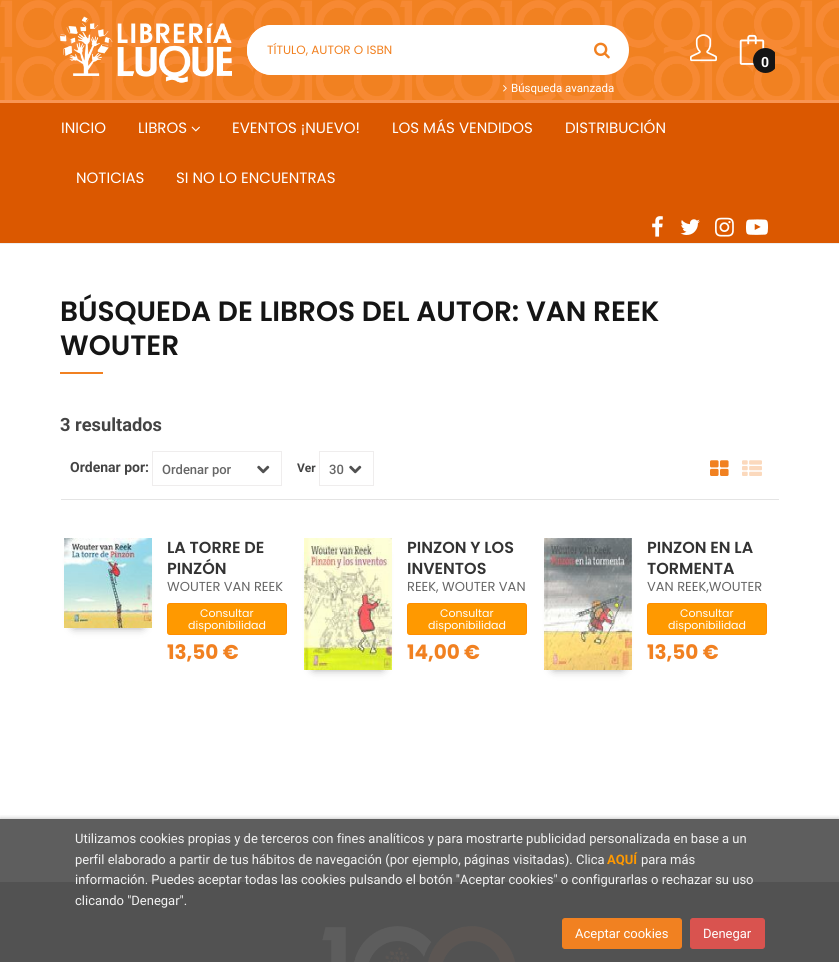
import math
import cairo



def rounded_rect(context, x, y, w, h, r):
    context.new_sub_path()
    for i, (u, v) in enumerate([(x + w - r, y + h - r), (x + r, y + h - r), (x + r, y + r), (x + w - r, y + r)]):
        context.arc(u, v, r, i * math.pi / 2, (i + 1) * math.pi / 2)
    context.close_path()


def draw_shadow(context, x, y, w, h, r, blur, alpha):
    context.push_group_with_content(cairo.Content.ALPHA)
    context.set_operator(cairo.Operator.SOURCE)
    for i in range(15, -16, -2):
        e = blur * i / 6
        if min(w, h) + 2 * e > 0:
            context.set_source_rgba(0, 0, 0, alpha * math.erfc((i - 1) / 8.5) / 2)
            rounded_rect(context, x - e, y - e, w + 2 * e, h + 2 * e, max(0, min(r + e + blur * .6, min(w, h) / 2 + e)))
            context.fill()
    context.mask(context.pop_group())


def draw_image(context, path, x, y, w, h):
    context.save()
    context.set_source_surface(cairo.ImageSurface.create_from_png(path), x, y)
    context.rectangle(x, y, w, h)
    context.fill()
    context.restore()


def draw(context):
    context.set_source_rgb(1, 1, 1)
    context.paint()
    context.set_source_rgb(94 / 255, 94 / 255, 94 / 255)
    context.rectangle(0, 819, 839, 63)
    context.fill()
    context.set_source_rgb(241 / 255, 129 / 255, 33 / 255)
    context.rectangle(0, 0, 839, 100)
    context.fill()
    draw_image(context, "images/1.png", 0, 0, 839, 100)
    draw_image(context, "images/2.png", 60, 16, 172, 67)
    context.set_source_rgb(1, 1, 1)
    context.new_path()
    context.move_to(272, 25)
    context.line_to(574, 25)
    context.line_to(574, 75)
    context.line_to(272, 75)
    context.curve_to(258, 75, 247, 64, 247, 50)
    context.curve_to(247, 36, 258, 25, 272, 25)
    context.close_path()
    context.fill()
    context.set_fill_rule(cairo.FillRule.EVEN_ODD)
    context.new_path()
    context.move_to(272, 25)
    context.line_to(574, 25)
    context.line_to(574, 75)
    context.line_to(272, 75)
    context.curve_to(258, 75, 247, 64, 247, 50)
    context.curve_to(247, 36, 258, 25, 272, 25)
    context.close_path()
    context.move_to(272, 27)
    context.line_to(574, 27)
    context.line_to(574, 73)
    context.line_to(272, 73)
    context.curve_to(259, 73, 249, 63, 249, 50)
    context.curve_to(249, 37, 259, 27, 272, 27)
    context.close_path()
    context.fill()
    context.new_path()
    context.move_to(574, 25)
    context.line_to(604, 25)
    context.curve_to(618, 25, 629, 36, 629, 50)
    context.curve_to(629, 64, 618, 75, 604, 75)
    context.line_to(574, 75)
    context.close_path()
    context.fill()
    draw_image(context, "images/3.png", 594, 42, 16, 17)
    draw_image(context, "images/4.png", 503, 85, 4, 7)
    draw_image(context, "images/5.png", 690, 34, 27, 28)
    draw_image(context, "images/6.png", 739, 34, 26, 31)
    context.save()
    context.set_fill_rule(cairo.FillRule.WINDING)
    rounded_rect(context, 727, 25, 48, 48, 3)
    context.clip()
    context.set_source_rgb(21 / 255, 21 / 255, 21 / 255)
    context.arc(765.5, 60.5, 12.5, 0, 2 * math.pi)
    context.fill()
    context.restore()
    context.set_source_rgb(219 / 255, 88 / 255, 0)
    context.rectangle(0, 103, 839, 140)
    context.fill()
    context.set_source_rgb(248 / 255, 149 / 255, 83 / 255)
    context.rectangle(0, 100, 839, 3)
    context.fill()
    context.set_source_rgb(238 / 255, 238 / 255, 238 / 255)
    context.rectangle(0, 243, 839, 1)
    context.fill()
    draw_image(context, "images/7.png", 191, 126, 9, 6)
    draw_image(context, "images/8.png", 652, 216, 11, 21)
    draw_image(context, "images/9.png", 680, 219, 20, 16)
    draw_image(context, "images/10.png", 715, 217, 19, 20)
    draw_image(context, "images/11.png", 746, 219, 22, 16)
    context.set_source_rgb(241 / 255, 129 / 255, 33 / 255)
    context.rectangle(60, 372, 43, 2)
    context.fill()
    context.set_source_rgb(228 / 255, 228 / 255, 228 / 255)
    context.rectangle(61, 499, 718, 1)
    context.fill()
    draw_image(context, "images/12.png", 257, 465, 13, 9)
    context.rectangle(152.5, 451.5, 129, 34)
    context.set_source_rgb(239 / 255, 237 / 255, 237 / 255)
    context.set_line_width(1)
    context.stroke()
    draw_image(context, "images/12.png", 349, 465, 13, 9)
    context.rectangle(319.5, 451.5, 54, 34)
    context.stroke()
    draw_image(context, "images/13.png", 710, 460, 19, 16)
    draw_image(context, "images/14.png", 742, 460, 20, 16)
    context.set_source_rgb(0, 0, 0)
    draw_shadow(context, 74, 556, 68, 70, 0, 5, 0.5)
    draw_image(context, "images/15.png", 64, 538, 88, 90)
    context.set_source_rgb(1, 153 / 255, 0)
    rounded_rect(context, 167, 603, 120, 32, 3)
    context.fill()
    rounded_rect(context, 167.5, 603.5, 119, 31, 2.5)
    context.set_source_rgba(1, 133 / 255, 0, 0.5)
    context.stroke()
    context.set_source_rgb(0, 0, 0)
    draw_shadow(context, 314, 556, 68, 112, 0, 5, 0.5)
    draw_image(context, "images/16.png", 304, 538, 88, 132)
    context.set_source_rgb(1, 153 / 255, 0)
    rounded_rect(context, 407, 603, 120, 32, 3)
    context.fill()
    rounded_rect(context, 407.5, 603.5, 119, 31, 2.5)
    context.set_source_rgba(1, 133 / 255, 0, 0.5)
    context.stroke()
    context.set_source_rgb(0, 0, 0)
    draw_shadow(context, 554, 556, 68, 112, 0, 5, 0.5)
    draw_image(context, "images/17.png", 544, 538, 88, 132)
    context.set_source_rgb(1, 153 / 255, 0)
    rounded_rect(context, 647, 603, 120, 32, 3)
    context.fill()
    rounded_rect(context, 647.5, 603.5, 119, 31, 2.5)
    context.set_source_rgba(1, 133 / 255, 0, 0.5)
    context.stroke()
    context.set_source_rgb(82 / 255, 82 / 255, 82 / 255)
    context.rectangle(0, 882, 839, 80)
    context.fill()
    draw_image(context, "images/18.png", 322, 926, 193, 36)
    context.save()
    context.set_fill_rule(cairo.FillRule.WINDING)
    context.rectangle(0, 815, 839, 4)
    context.clip()
    context.set_source_rgb(0, 0, 0)
    draw_shadow(context, 0, 819, 839, 143, 0, 2.5, 0.3)
    context.restore()
    context.set_source_rgb(241 / 255, 129 / 255, 33 / 255)
    rounded_rect(context, 562.5, 918.5, 119, 30, 2.5)
    context.fill_preserve()
    context.stroke()
    context.set_source_rgb(217 / 255, 83 / 255, 79 / 255)
    rounded_rect(context, 690.5, 918.5, 74, 30, 2.5)
    context.fill_preserve()
    context.stroke()
    context.select_font_face("Poppins")
    context.set_font_size(12)
    context.set_source_rgb(241 / 255, 129 / 255, 33 / 255)
    context.move_to(267, 54)
    context.show_text("TÍTULO, AUTOR O ISBN")
    context.select_font_face("Roboto")
    context.set_font_size(11.5)
    context.set_source_rgb(1, 1, 1)
    context.move_to(511, 92)
    context.show_text("Búsqueda avanzada")
    context.select_font_face("Roboto", cairo.FontSlant.NORMAL, cairo.FontWeight.BOLD)
    context.set_font_size(14)
    context.move_to(761, 67)
    context.show_text("0")
    context.select_font_face("Poppins")
    context.set_font_size(15)
    context.move_to(61, 133)
    context.show_text("INICIO")
    context.move_to(138, 133)
    context.show_text("LIBROS")
    context.move_to(232, 133)
    context.show_text("EVENTOS ¡NUEVO!")
    context.move_to(392, 133)
    context.show_text("LOS MÁS VENDIDOS")
    context.move_to(565, 133)
    context.show_text("DISTRIBUCIÓN")
    context.move_to(76, 183)
    context.show_text("NOTICIAS")
    context.move_to(176, 183)
    context.show_text("SI NO LO ENCUENTRAS")
    context.select_font_face("Poppins SemiBold")
    context.set_font_size(28)
    context.set_source_rgb(21 / 255, 21 / 255, 21 / 255)
    context.move_to(60, 321)
    context.show_text("BÚSQUEDA DE LIBROS DEL AUTOR: VAN REEK")
    context.move_to(60, 355)
    context.show_text("WOUTER")
    context.select_font_face("Roboto", cairo.FontSlant.NORMAL, cairo.FontWeight.BOLD)
    context.set_font_size(18.25)
    context.set_source_rgb(68 / 255, 68 / 255, 68 / 255)
    context.move_to(60, 431)
    context.show_text("3 resultados")
    context.set_font_size(14)
    context.move_to(70, 472)
    context.show_text("Ordenar por:")
    context.select_font_face("Roboto Medium")
    context.set_font_size(13)
    context.set_source_rgb(102 / 255, 102 / 255, 102 / 255)
    context.move_to(162, 474)
    context.show_text("Ordenar por")
    context.select_font_face("Roboto", cairo.FontSlant.NORMAL, cairo.FontWeight.BOLD)
    context.set_font_size(12)
    context.set_source_rgb(68 / 255, 68 / 255, 68 / 255)
    context.move_to(297, 472)
    context.show_text("Ver")
    context.select_font_face("Roboto Medium")
    context.set_font_size(13)
    context.set_source_rgb(102 / 255, 102 / 255, 102 / 255)
    context.move_to(329, 474)
    context.show_text("30")
    context.select_font_face("Poppins SemiBold")
    context.set_font_size(16)
    context.set_source_rgb(51 / 255, 51 / 255, 51 / 255)
    context.move_to(167, 553)
    context.show_text("LA TORRE DE")
    context.move_to(167, 574)
    context.show_text("PINZÓN")
    context.select_font_face("Poppins")
    context.set_font_size(13)
    context.set_source_rgb(102 / 255, 102 / 255, 102 / 255)
    context.move_to(167, 591)
    context.show_text("WOUTER VAN REEK")
    context.set_font_size(11)
    context.set_source_rgb(1, 1, 1)
    context.move_to(200, 617)
    context.show_text("Consultar")
    context.move_to(188, 629)
    context.show_text("disponibilidad")
    context.select_font_face("Poppins", cairo.FontSlant.NORMAL, cairo.FontWeight.BOLD)
    context.set_font_size(20)
    context.set_source_rgb(241 / 255, 129 / 255, 33 / 255)
    context.move_to(167, 659)
    context.show_text("13,50 €")
    context.select_font_face("Poppins SemiBold")
    context.set_font_size(16)
    context.set_source_rgb(51 / 255, 51 / 255, 51 / 255)
    context.move_to(407, 553)
    context.show_text("PINZON Y LOS")
    context.move_to(407, 574)
    context.show_text("INVENTOS")
    context.select_font_face("Poppins")
    context.set_font_size(13)
    context.set_source_rgb(102 / 255, 102 / 255, 102 / 255)
    context.move_to(407, 591)
    context.show_text("REEK, WOUTER VAN")
    context.set_font_size(11)
    context.set_source_rgb(1, 1, 1)
    context.move_to(440, 617)
    context.show_text("Consultar")
    context.move_to(428, 629)
    context.show_text("disponibilidad")
    context.select_font_face("Poppins", cairo.FontSlant.NORMAL, cairo.FontWeight.BOLD)
    context.set_font_size(20)
    context.set_source_rgb(241 / 255, 129 / 255, 33 / 255)
    context.move_to(407, 659)
    context.show_text("14,00 €")
    context.select_font_face("Poppins SemiBold")
    context.set_font_size(16)
    context.set_source_rgb(51 / 255, 51 / 255, 51 / 255)
    context.move_to(647, 553)
    context.show_text("PINZON EN LA")
    context.move_to(647, 574)
    context.show_text("TORMENTA")
    context.select_font_face("Poppins")
    context.set_font_size(13)
    context.set_source_rgb(102 / 255, 102 / 255, 102 / 255)
    context.move_to(647, 591)
    context.show_text("VAN REEK,WOUTER")
    context.set_font_size(11)
    context.set_source_rgb(1, 1, 1)
    context.move_to(680, 617)
    context.show_text("Consultar")
    context.move_to(668, 629)
    context.show_text("disponibilidad")
    context.select_font_face("Poppins", cairo.FontSlant.NORMAL, cairo.FontWeight.BOLD)
    context.set_font_size(20)
    context.set_source_rgb(241 / 255, 129 / 255, 33 / 255)
    context.move_to(647, 659)
    context.show_text("13,50 €")
    context.select_font_face("Roboto")
    context.set_font_size(13)
    context.set_source_rgb(242 / 255, 242 / 255, 242 / 255)
    context.move_to(75, 843)
    context.show_text("Utilizamos cookies propias y de terceros con fines analíticos y para mostrarte publicidad personalizada en base a un")
    context.move_to(75, 864)
    context.show_text("perfil elaborado a partir de tus hábitos de navegación (por ejemplo, páginas visitadas). Clica")
    context.select_font_face("Roboto", cairo.FontSlant.NORMAL, cairo.FontWeight.BOLD)
    context.set_source_rgb(1, 153 / 255, 0)
    context.move_to(607, 864)
    context.show_text("AQUÍ")
    context.select_font_face("Roboto")
    context.set_source_rgb(242 / 255, 242 / 255, 242 / 255)
    context.move_to(641, 864)
    context.show_text("para más")
    context.move_to(75, 884)
    context.show_text("información. Puedes aceptar todas las cookies pulsando el botón \"Aceptar cookies\" o configurarlas o rechazar su uso")
    context.move_to(75, 905)
    context.show_text("clicando \"Denegar\".")
    context.set_source_rgb(1, 1, 1)
    context.move_to(575, 938)
    context.show_text("Aceptar cookies")
    context.move_to(703, 938)
    context.show_text("Denegar")


surface = cairo.ImageSurface(cairo.Format.RGB24, 839, 962)
context = cairo.Context(surface)
options = cairo.FontOptions()
options.set_hint_metrics(cairo.HintMetrics.OFF)
options.set_hint_style(cairo.HintStyle.NONE)
context.set_font_options(options)
context.set_miter_limit(4)
draw(context)
surface.write_to_png("out.png")
